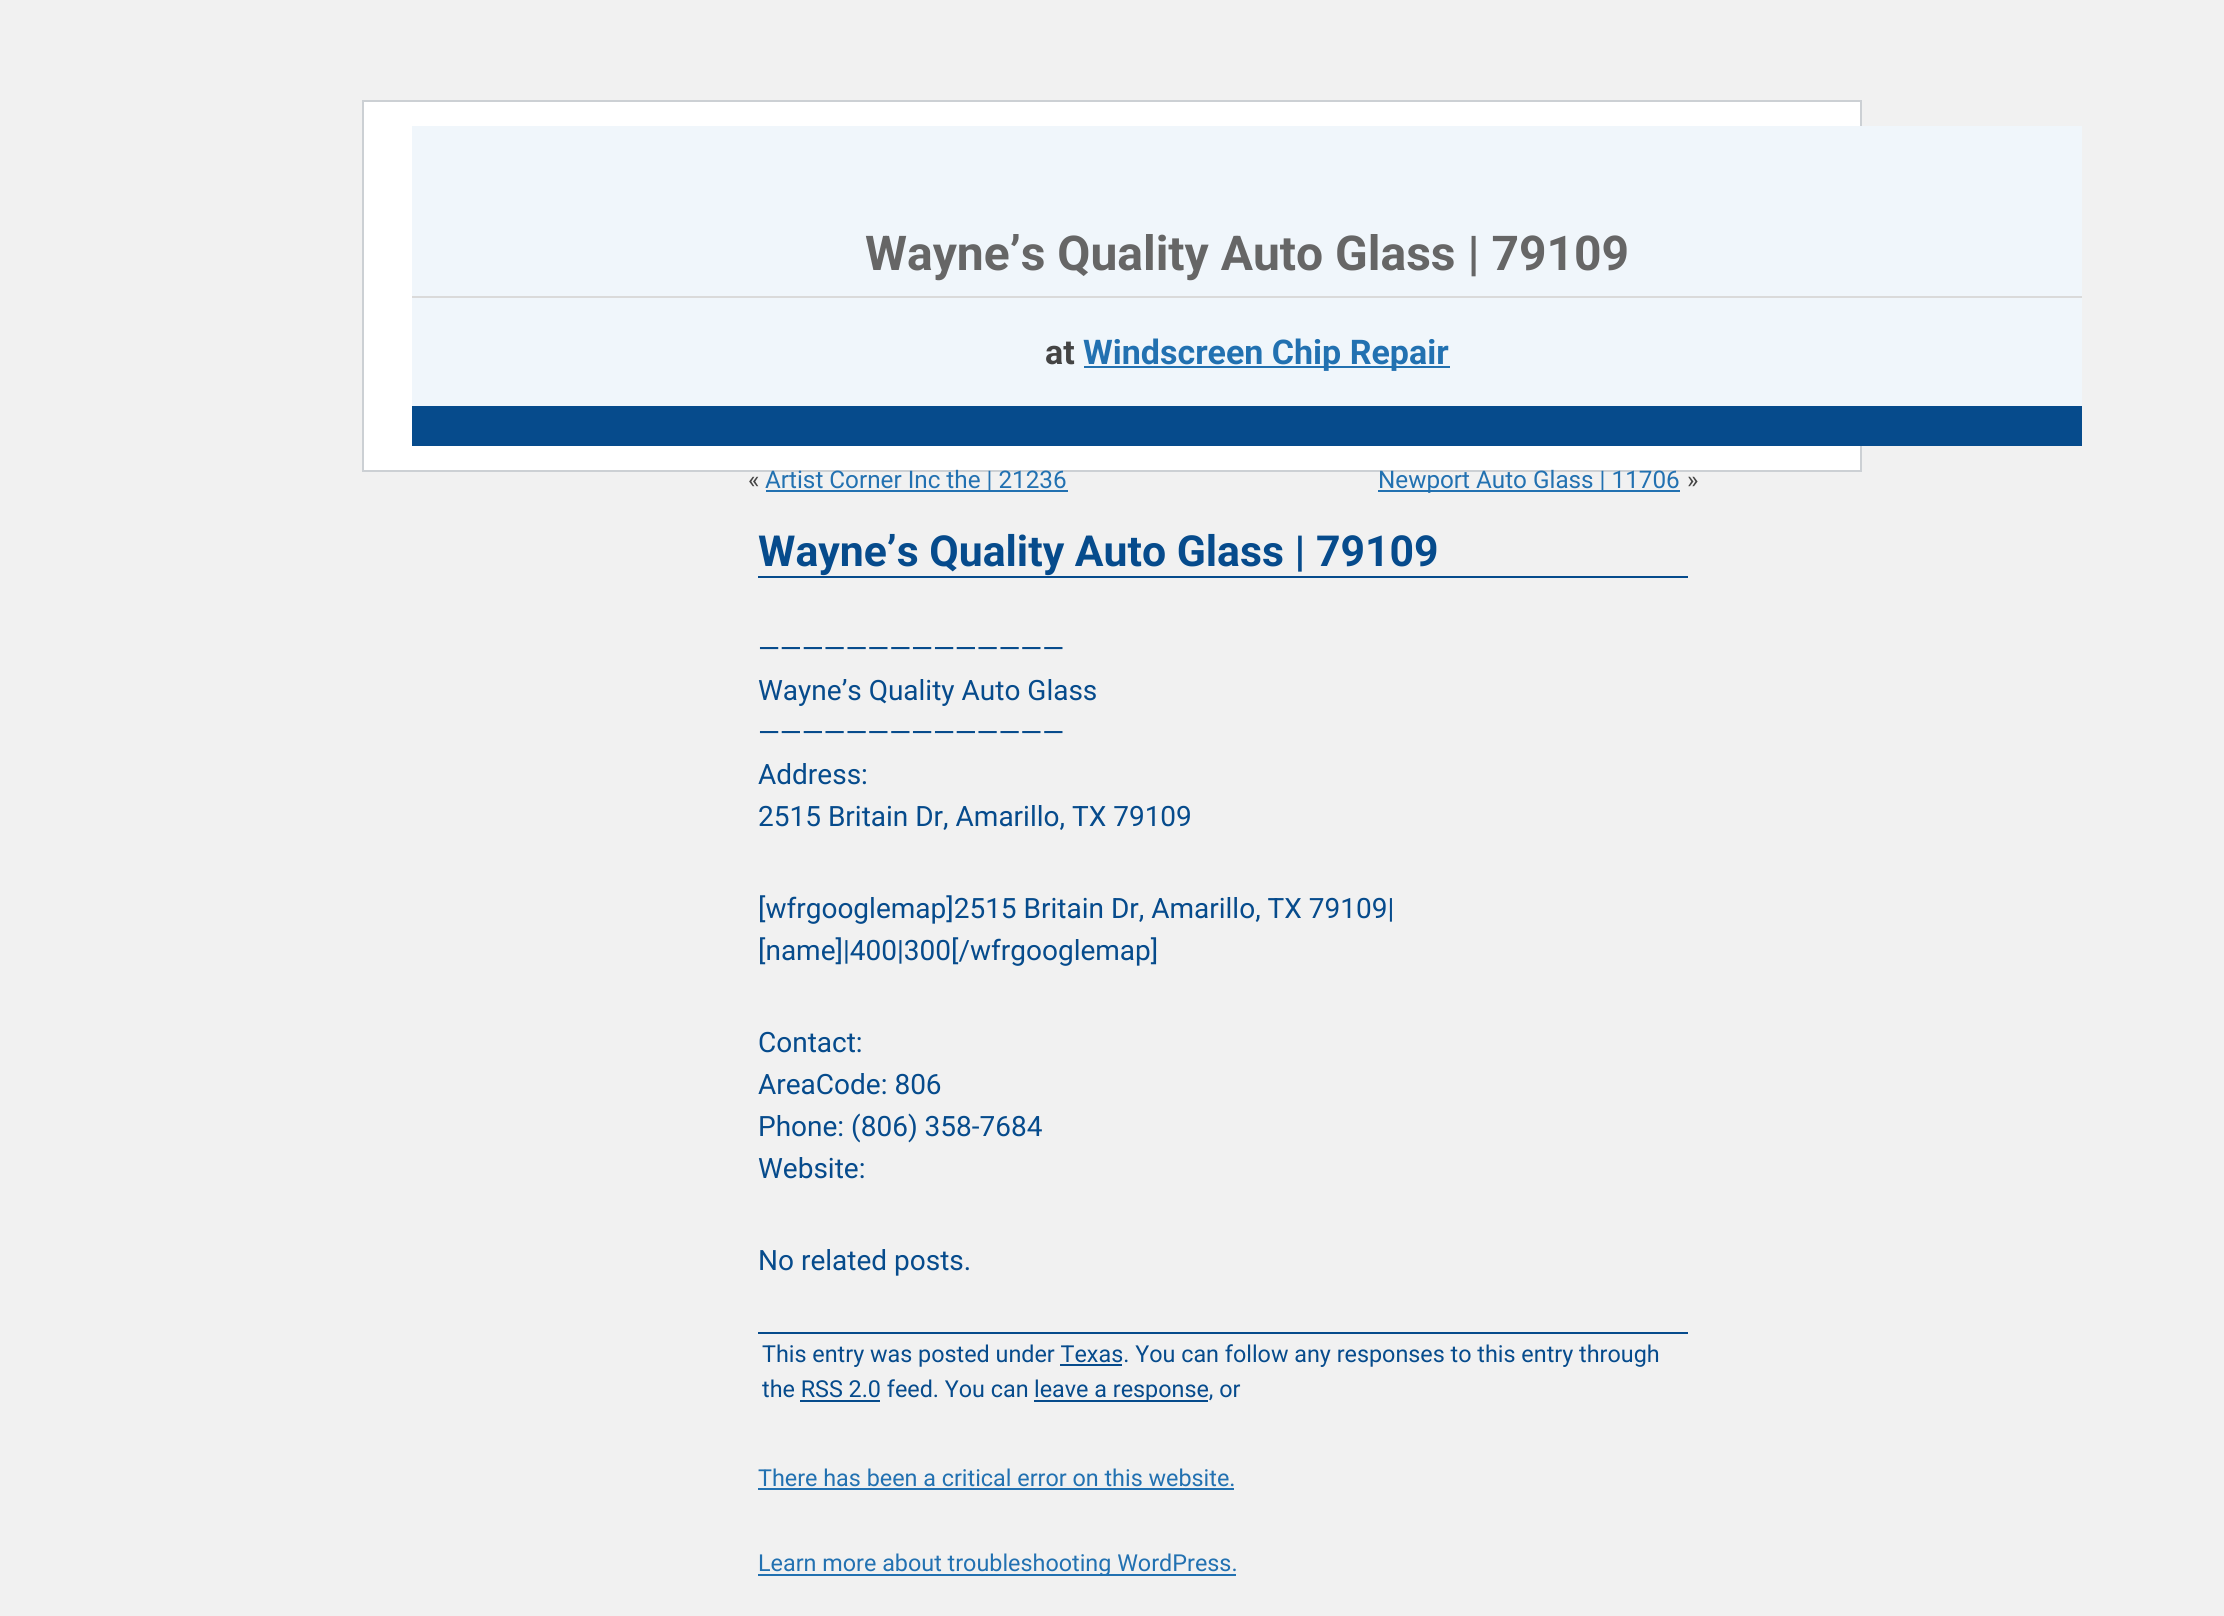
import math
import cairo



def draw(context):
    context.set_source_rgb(241 / 255, 241 / 255, 241 / 255)
    context.paint()
    context.set_source_rgb(1, 1, 1)
    context.rectangle(363, 101, 1498, 370)
    context.fill_preserve()
    context.set_source_rgb(204 / 255, 208 / 255, 212 / 255)
    context.stroke()
    context.set_source_rgb(240 / 255, 246 / 255, 251 / 255)
    context.rectangle(412, 126, 1670, 280)
    context.fill()
    context.set_source_rgb(218 / 255, 218 / 255, 218 / 255)
    context.rectangle(412, 296, 1670, 2)
    context.fill()
    context.set_source_rgb(34 / 255, 113 / 255, 177 / 255)
    context.rectangle(1084, 366, 366, 2)
    context.fill()
    context.set_source_rgb(6 / 255, 75 / 255, 140 / 255)
    context.rectangle(412, 406, 1670, 40)
    context.fill()
    context.set_source_rgb(34 / 255, 113 / 255, 177 / 255)
    context.rectangle(766, 490, 302, 2)
    context.fill()
    context.rectangle(1378, 490, 302, 2)
    context.fill()
    context.set_source_rgb(6 / 255, 75 / 255, 140 / 255)
    context.rectangle(758, 576, 930, 2)
    context.fill()
    context.rectangle(758, 1332, 930, 2)
    context.fill()
    context.rectangle(1060, 1364, 62, 2)
    context.fill()
    context.rectangle(800, 1400, 80, 2)
    context.fill()
    context.rectangle(1034, 1400, 174, 2)
    context.fill()
    context.set_source_rgb(34 / 255, 113 / 255, 177 / 255)
    context.rectangle(758, 1488, 476, 2)
    context.fill()
    context.rectangle(758, 1574, 478, 2)
    context.fill()
    context.select_font_face("Roboto", cairo.FontSlant.NORMAL, cairo.FontWeight.BOLD)
    context.set_font_size(48)
    context.set_source_rgb(102 / 255, 102 / 255, 102 / 255)
    context.move_to(865, 270)
    context.show_text("Wayne’s Quality Auto Glass | 79109")
    context.set_font_size(34)
    context.set_source_rgb(68 / 255, 68 / 255, 68 / 255)
    context.move_to(1045, 364)
    context.show_text("at")
    context.set_source_rgb(34 / 255, 113 / 255, 177 / 255)
    context.move_to(1083, 364)
    context.show_text("Windscreen Chip Repair")
    context.select_font_face("Roboto")
    context.set_font_size(24.25)
    context.set_source_rgb(68 / 255, 68 / 255, 68 / 255)
    context.move_to(748, 488)
    context.show_text("«")
    context.set_source_rgb(34 / 255, 113 / 255, 177 / 255)
    context.move_to(765, 488)
    context.show_text("Artist Corner Inc the | 21236")
    context.move_to(1378, 488)
    context.show_text("Newport Auto Glass | 11706")
    context.set_source_rgb(68 / 255, 68 / 255, 68 / 255)
    context.move_to(1687, 488)
    context.show_text("»")
    context.select_font_face("Roboto", cairo.FontSlant.NORMAL, cairo.FontWeight.BOLD)
    context.set_font_size(42.75)
    context.set_source_rgb(6 / 255, 75 / 255, 140 / 255)
    context.move_to(758, 566)
    context.show_text("Wayne’s Quality Auto Glass | 79109")
    context.select_font_face("Roboto")
    context.set_font_size(28)
    context.move_to(758, 658)
    context.show_text("——————————————")
    context.move_to(758, 700)
    context.show_text("Wayne’s Quality Auto Glass")
    context.move_to(758, 742)
    context.show_text("——————————————")
    context.move_to(758, 784)
    context.show_text("Address:")
    context.move_to(758, 826)
    context.show_text("2515 Britain Dr, Amarillo, TX 79109")
    context.move_to(758, 918)
    context.show_text("[wfrgooglemap]2515 Britain Dr, Amarillo, TX 79109|")
    context.move_to(758, 960)
    context.show_text("[name]|400|300[/wfrgooglemap]")
    context.move_to(758, 1052)
    context.show_text("Contact:")
    context.move_to(758, 1094)
    context.show_text("AreaCode: 806")
    context.move_to(758, 1136)
    context.show_text("Phone: (806) 358-7684")
    context.move_to(758, 1178)
    context.show_text("Website:")
    context.move_to(758, 1270)
    context.show_text("No related posts.")
    context.set_font_size(23.35)
    context.move_to(762, 1362)
    context.show_text("This entry was posted under Texas. You can follow any responses to this entry through")
    context.move_to(762, 1397)
    context.show_text("the RSS 2.0 feed. You can")
    context.move_to(1034, 1397)
    context.show_text("leave a response, or")
    context.set_source_rgb(34 / 255, 113 / 255, 177 / 255)
    context.move_to(758, 1486)
    context.show_text("There has been a critical error on this website.")
    context.move_to(758, 1571)
    context.show_text("Learn more about troubleshooting WordPress.")


surface = cairo.ImageSurface(cairo.Format.RGB24, 2224, 1616)
context = cairo.Context(surface)
options = cairo.FontOptions()
options.set_hint_metrics(cairo.HintMetrics.OFF)
options.set_hint_style(cairo.HintStyle.NONE)
context.set_font_options(options)
context.set_miter_limit(4)
draw(context)
surface.write_to_png("out.png")
